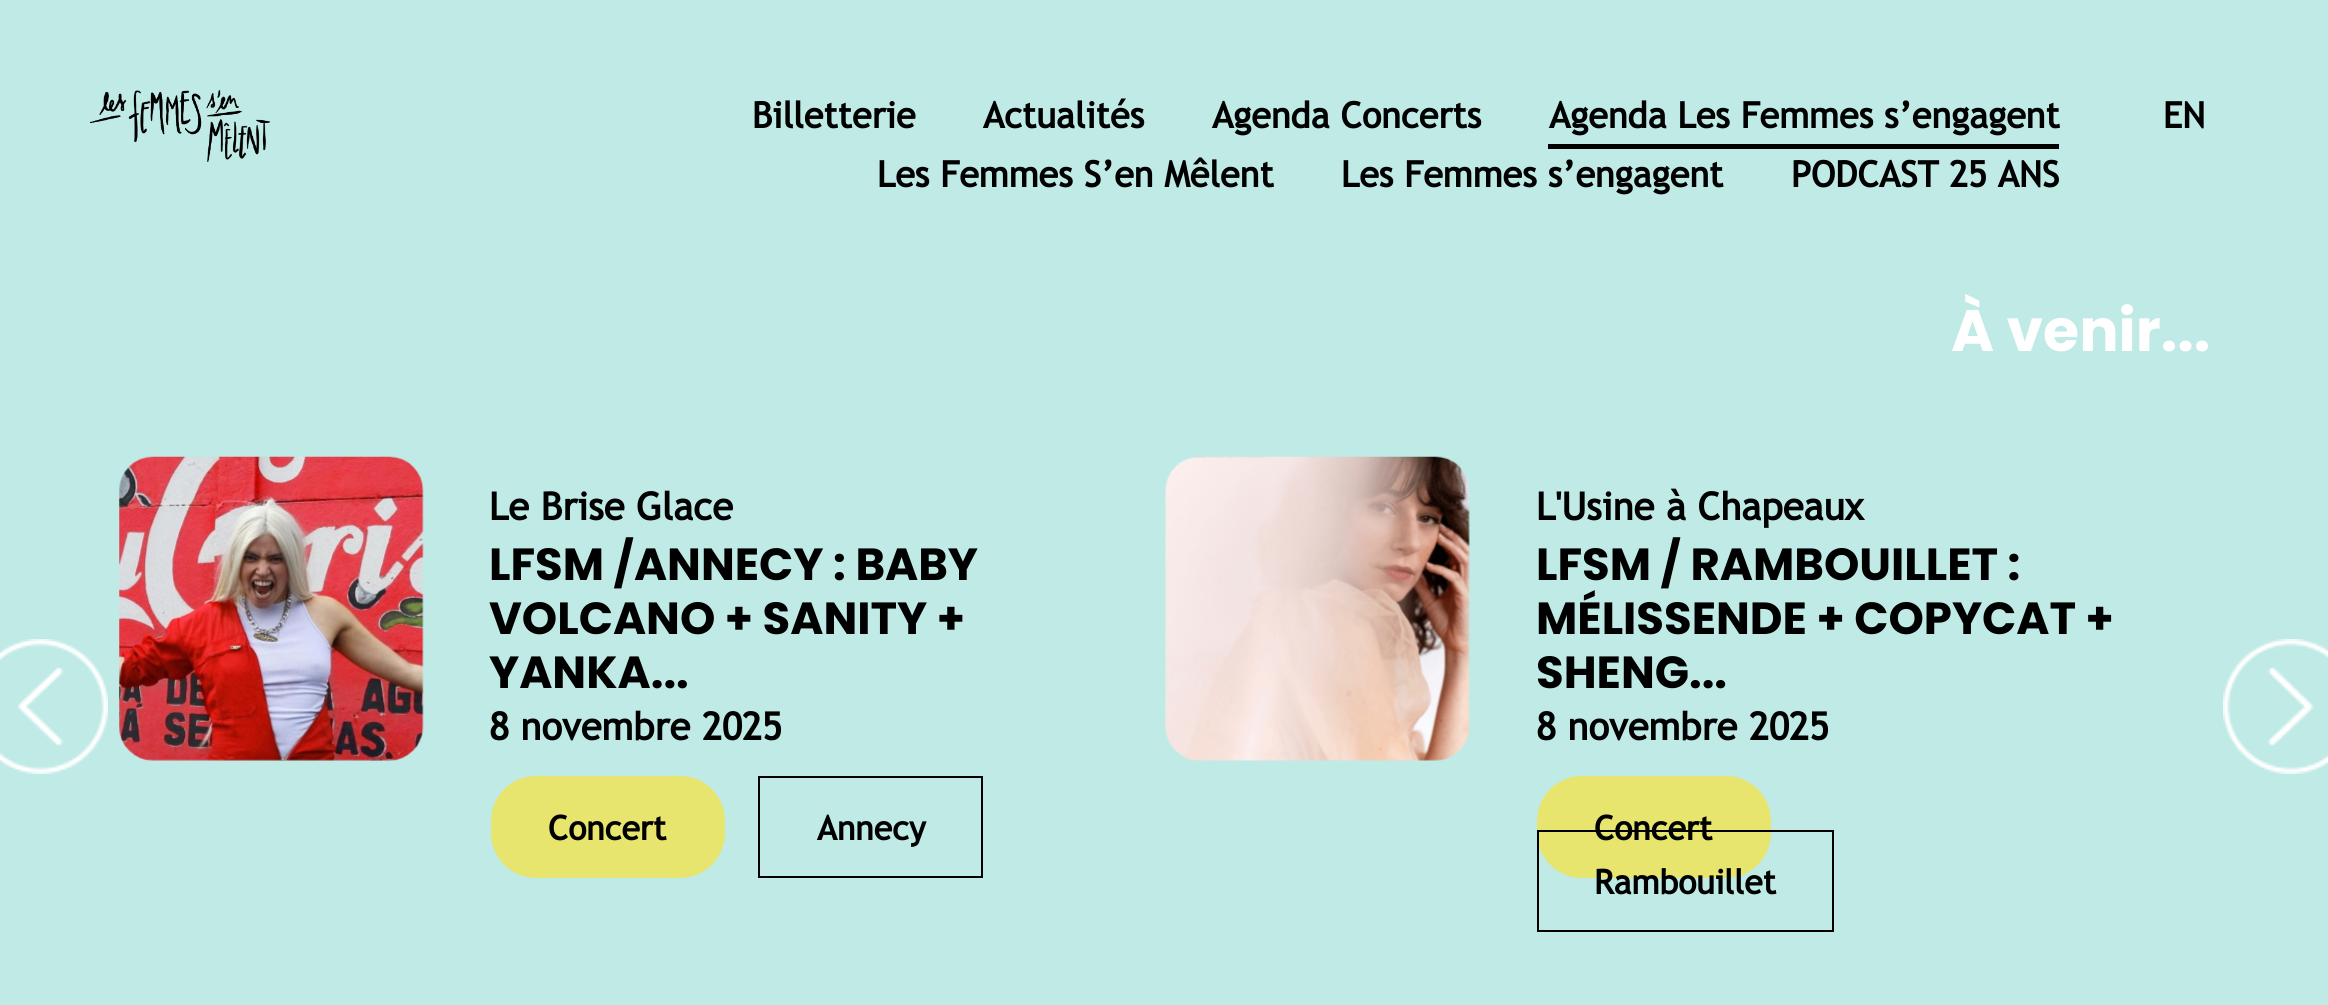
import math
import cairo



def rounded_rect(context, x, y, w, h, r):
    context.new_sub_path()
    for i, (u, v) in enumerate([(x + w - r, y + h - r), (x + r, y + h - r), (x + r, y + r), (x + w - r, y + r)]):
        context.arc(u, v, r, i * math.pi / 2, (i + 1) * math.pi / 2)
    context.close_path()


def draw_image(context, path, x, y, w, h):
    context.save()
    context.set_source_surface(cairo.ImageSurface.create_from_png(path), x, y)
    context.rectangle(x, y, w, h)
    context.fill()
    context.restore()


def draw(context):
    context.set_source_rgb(191 / 255, 234 / 255, 230 / 255)
    context.paint()
    draw_image(context, "images/1.png", 90, 90, 180, 72)
    context.set_source_rgb(0, 0, 0)
    context.rectangle(1548, 144, 511, 5)
    context.fill()
    draw_image(context, "images/2.png", 0, 639, 108, 135)
    draw_image(context, "images/3.png", 119, 456, 305, 305)
    context.set_source_rgb(231 / 255, 229 / 255, 110 / 255)
    rounded_rect(context, 492, 777, 232, 100, 44)
    context.fill_preserve()
    context.stroke()
    context.rectangle(759, 777, 223, 100)
    context.set_source_rgb(0, 0, 0)
    context.stroke()
    draw_image(context, "images/4.png", 1165, 456, 305, 305)
    context.set_source_rgb(231 / 255, 229 / 255, 110 / 255)
    rounded_rect(context, 1538, 777, 232, 100, 44)
    context.fill_preserve()
    context.stroke()
    context.rectangle(1538, 831, 295, 100)
    context.set_source_rgb(0, 0, 0)
    context.stroke()
    draw_image(context, "images/5.png", 2223, 639, 105, 135)
    context.select_font_face("Trebuchet MS", cairo.FontSlant.NORMAL, cairo.FontWeight.BOLD)
    context.set_font_size(36)
    context.move_to(752, 128)
    context.show_text("Billetterie")
    context.move_to(983, 128)
    context.show_text("Actualités")
    context.move_to(1212, 128)
    context.show_text("Agenda Concerts")
    context.move_to(1549, 128)
    context.show_text("Agenda Les Femmes s’engagent")
    context.move_to(877, 187)
    context.show_text("Les Femmes S’en Mêlent")
    context.move_to(1341, 187)
    context.show_text("Les Femmes s’engagent")
    context.move_to(1791, 187)
    context.show_text("PODCAST 25 ANS")
    context.move_to(2163, 128)
    context.show_text("EN")
    context.select_font_face("Poppins", cairo.FontSlant.NORMAL, cairo.FontWeight.BOLD)
    context.set_font_size(58.5)
    context.set_source_rgb(1, 1, 1)
    context.move_to(1951, 351)
    context.show_text("À venir...")
    context.select_font_face("Trebuchet MS", cairo.FontSlant.NORMAL, cairo.FontWeight.BOLD)
    context.set_font_size(38.25)
    context.set_source_rgb(0, 0, 0)
    context.move_to(489, 520)
    context.show_text("Le Brise Glace")
    context.select_font_face("Poppins", cairo.FontSlant.NORMAL, cairo.FontWeight.BOLD)
    context.set_font_size(45)
    context.move_to(489, 580)
    context.show_text("LFSM /ANNECY : BABY")
    context.move_to(489, 634)
    context.show_text("VOLCANO + SANITY +")
    context.move_to(489, 688)
    context.show_text("YANKA...")
    context.select_font_face("Trebuchet MS", cairo.FontSlant.NORMAL, cairo.FontWeight.BOLD)
    context.set_font_size(38.25)
    context.move_to(489, 740)
    context.show_text("8 novembre 2025")
    context.set_font_size(33.75)
    context.move_to(548, 840)
    context.show_text("Concert")
    context.move_to(817, 840)
    context.show_text("Annecy")
    context.set_font_size(38.25)
    context.move_to(1536, 520)
    context.show_text("L'Usine à Chapeaux")
    context.select_font_face("Poppins", cairo.FontSlant.NORMAL, cairo.FontWeight.BOLD)
    context.set_font_size(45)
    context.move_to(1536, 580)
    context.show_text("LFSM / RAMBOUILLET :")
    context.move_to(1536, 634)
    context.show_text("MÉLISSENDE + COPYCAT +")
    context.move_to(1536, 688)
    context.show_text("SHENG...")
    context.select_font_face("Trebuchet MS", cairo.FontSlant.NORMAL, cairo.FontWeight.BOLD)
    context.set_font_size(38.25)
    context.move_to(1536, 740)
    context.show_text("8 novembre 2025")
    context.set_font_size(33.75)
    context.move_to(1594, 840)
    context.show_text("Concert")
    context.move_to(1594, 894)
    context.show_text("Rambouillet")


surface = cairo.ImageSurface(cairo.Format.RGB24, 2328, 1005)
context = cairo.Context(surface)
options = cairo.FontOptions()
options.set_hint_metrics(cairo.HintMetrics.OFF)
options.set_hint_style(cairo.HintStyle.NONE)
context.set_font_options(options)
context.set_miter_limit(4)
draw(context)
surface.write_to_png("out.png")
